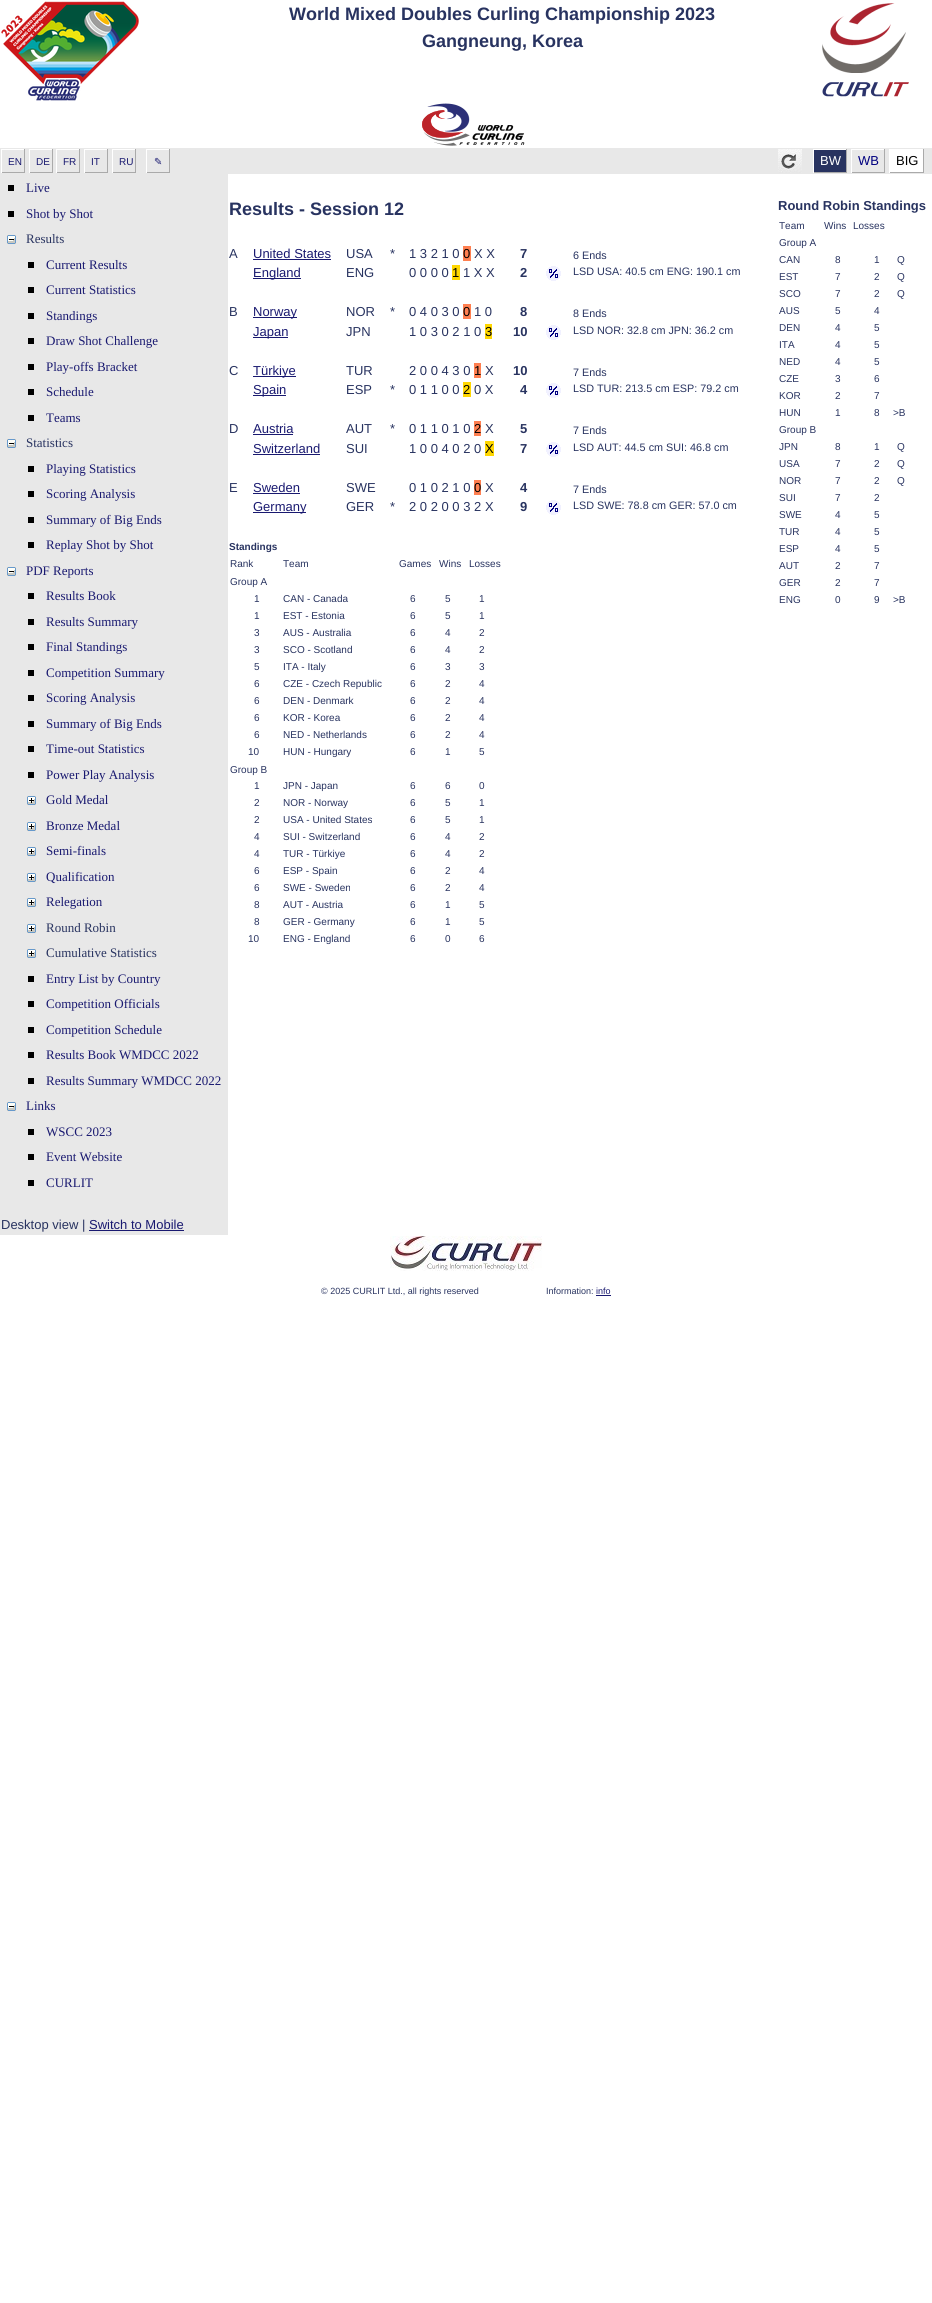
import math
import cairo



def draw_image(context, path, x, y, w, h):
    context.save()
    context.set_source_surface(cairo.ImageSurface.create_from_png(path), x, y)
    context.rectangle(x, y, w, h)
    context.fill()
    context.restore()


def draw(context):
    context.set_source_rgb(1, 1, 1)
    context.paint()
    draw_image(context, "images/1.png", 1, 1, 138, 100)
    draw_image(context, "images/2.png", 822, 3, 87, 94)
    draw_image(context, "images/3.png", 422, 103, 103, 43)
    context.set_source_rgb(232 / 255, 232 / 255, 232 / 255)
    context.rectangle(0, 148, 932, 26)
    context.fill()
    context.set_source_rgb(1, 1, 1)
    context.rectangle(1, 149, 24, 1)
    context.fill()
    context.set_source_rgb(170 / 255, 170 / 255, 170 / 255)
    context.rectangle(24, 149, 1, 24)
    context.fill()
    context.rectangle(1, 172, 24, 1)
    context.fill()
    context.set_source_rgb(1, 1, 1)
    context.rectangle(1, 149, 1, 24)
    context.fill()
    context.rectangle(29, 149, 24, 1)
    context.fill()
    context.set_source_rgb(170 / 255, 170 / 255, 170 / 255)
    context.rectangle(52, 149, 1, 24)
    context.fill()
    context.rectangle(29, 172, 24, 1)
    context.fill()
    context.set_source_rgb(1, 1, 1)
    context.rectangle(29, 149, 1, 24)
    context.fill()
    context.rectangle(56, 149, 24, 1)
    context.fill()
    context.set_source_rgb(170 / 255, 170 / 255, 170 / 255)
    context.rectangle(79, 149, 1, 24)
    context.fill()
    context.rectangle(56, 172, 24, 1)
    context.fill()
    context.set_source_rgb(1, 1, 1)
    context.rectangle(56, 149, 1, 24)
    context.fill()
    context.rectangle(84, 149, 24, 1)
    context.fill()
    context.set_source_rgb(170 / 255, 170 / 255, 170 / 255)
    context.rectangle(107, 149, 1, 24)
    context.fill()
    context.rectangle(84, 172, 24, 1)
    context.fill()
    context.set_source_rgb(1, 1, 1)
    context.rectangle(84, 149, 1, 24)
    context.fill()
    context.rectangle(112, 149, 24, 1)
    context.fill()
    context.set_source_rgb(170 / 255, 170 / 255, 170 / 255)
    context.rectangle(135, 149, 1, 24)
    context.fill()
    context.rectangle(112, 172, 24, 1)
    context.fill()
    context.set_source_rgb(1, 1, 1)
    context.rectangle(112, 149, 1, 24)
    context.fill()
    context.rectangle(146, 149, 24, 1)
    context.fill()
    context.set_source_rgb(170 / 255, 170 / 255, 170 / 255)
    context.rectangle(169, 149, 1, 24)
    context.fill()
    context.rectangle(146, 172, 24, 1)
    context.fill()
    context.set_source_rgb(1, 1, 1)
    context.rectangle(146, 149, 1, 24)
    context.fill()
    draw_image(context, "images/4.png", 778, 149, 24, 24)
    context.set_source_rgb(40 / 255, 51 / 255, 96 / 255)
    context.rectangle(814, 150, 32, 22)
    context.fill()
    context.set_source_rgb(1, 1, 1)
    context.rectangle(813, 149, 34, 1)
    context.fill()
    context.set_source_rgb(170 / 255, 170 / 255, 170 / 255)
    context.rectangle(846, 149, 1, 24)
    context.fill()
    context.rectangle(813, 172, 34, 1)
    context.fill()
    context.set_source_rgb(1, 1, 1)
    context.rectangle(813, 149, 1, 24)
    context.fill()
    context.rectangle(851, 149, 34, 1)
    context.fill()
    context.set_source_rgb(170 / 255, 170 / 255, 170 / 255)
    context.rectangle(884, 149, 1, 24)
    context.fill()
    context.rectangle(851, 172, 34, 1)
    context.fill()
    context.set_source_rgb(1, 1, 1)
    context.rectangle(851, 149, 1, 24)
    context.fill()
    context.rectangle(890, 149, 33, 23)
    context.fill()
    context.set_source_rgb(170 / 255, 170 / 255, 170 / 255)
    context.rectangle(923, 149, 1, 24)
    context.fill()
    context.rectangle(889, 172, 35, 1)
    context.fill()
    context.set_source_rgb(1, 1, 1)
    context.rectangle(889, 149, 1, 24)
    context.fill()
    context.set_source_rgb(232 / 255, 232 / 255, 232 / 255)
    context.rectangle(0, 174, 228, 1061)
    context.fill()
    context.set_source_rgb(0, 0, 0)
    context.rectangle(8, 185, 6, 6)
    context.fill()
    context.rectangle(8, 211, 6, 6)
    context.fill()
    draw_image(context, "images/5.png", 7, 235, 9, 9)
    context.rectangle(28, 262, 6, 6)
    context.fill()
    context.rectangle(28, 287, 6, 6)
    context.fill()
    context.rectangle(28, 313, 6, 6)
    context.fill()
    context.rectangle(28, 338, 6, 6)
    context.fill()
    context.rectangle(28, 364, 6, 6)
    context.fill()
    context.rectangle(28, 389, 6, 6)
    context.fill()
    context.rectangle(28, 415, 6, 6)
    context.fill()
    draw_image(context, "images/5.png", 7, 439, 9, 9)
    context.rectangle(28, 466, 6, 6)
    context.fill()
    context.rectangle(28, 491, 6, 6)
    context.fill()
    context.rectangle(28, 517, 6, 6)
    context.fill()
    context.rectangle(28, 542, 6, 6)
    context.fill()
    draw_image(context, "images/5.png", 7, 567, 9, 9)
    context.rectangle(28, 593, 6, 6)
    context.fill()
    context.rectangle(28, 619, 6, 6)
    context.fill()
    context.rectangle(28, 644, 6, 6)
    context.fill()
    context.rectangle(28, 670, 6, 6)
    context.fill()
    context.rectangle(28, 695, 6, 6)
    context.fill()
    context.rectangle(28, 721, 6, 6)
    context.fill()
    context.rectangle(28, 746, 6, 6)
    context.fill()
    context.rectangle(28, 772, 6, 6)
    context.fill()
    draw_image(context, "images/6.png", 27, 796, 9, 9)
    draw_image(context, "images/6.png", 27, 822, 9, 9)
    draw_image(context, "images/6.png", 27, 847, 9, 9)
    draw_image(context, "images/6.png", 27, 873, 9, 9)
    draw_image(context, "images/6.png", 27, 898, 9, 9)
    draw_image(context, "images/6.png", 27, 924, 9, 9)
    draw_image(context, "images/6.png", 27, 949, 9, 9)
    context.rectangle(28, 976, 6, 6)
    context.fill()
    context.rectangle(28, 1001, 6, 6)
    context.fill()
    context.rectangle(28, 1027, 6, 6)
    context.fill()
    context.rectangle(28, 1052, 6, 6)
    context.fill()
    context.rectangle(28, 1078, 6, 6)
    context.fill()
    draw_image(context, "images/5.png", 7, 1102, 9, 9)
    context.rectangle(28, 1129, 6, 6)
    context.fill()
    context.rectangle(28, 1154, 6, 6)
    context.fill()
    context.rectangle(28, 1180, 6, 6)
    context.fill()
    context.set_source_rgb(25 / 255, 25 / 255, 112 / 255)
    context.rectangle(89, 1230, 95, 1)
    context.fill()
    context.rectangle(253, 259, 78, 1)
    context.fill()
    context.set_source_rgb(1, 127 / 255, 80 / 255)
    context.rectangle(463, 246, 8, 15)
    context.fill()
    draw_image(context, "images/7.png", 546, 266, 15, 15)
    context.set_source_rgb(25 / 255, 25 / 255, 112 / 255)
    context.rectangle(253, 278, 48, 1)
    context.fill()
    context.set_source_rgb(1, 215 / 255, 0)
    context.rectangle(452, 265, 8, 15)
    context.fill()
    context.set_source_rgb(25 / 255, 25 / 255, 112 / 255)
    context.rectangle(253, 317, 44, 1)
    context.fill()
    context.set_source_rgb(1, 127 / 255, 80 / 255)
    context.rectangle(463, 304, 8, 15)
    context.fill()
    draw_image(context, "images/7.png", 546, 325, 15, 15)
    context.set_source_rgb(25 / 255, 25 / 255, 112 / 255)
    context.rectangle(253, 337, 35, 1)
    context.fill()
    context.set_source_rgb(1, 215 / 255, 0)
    context.rectangle(485, 324, 7, 15)
    context.fill()
    context.set_source_rgb(25 / 255, 25 / 255, 112 / 255)
    context.rectangle(253, 376, 43, 1)
    context.fill()
    context.set_source_rgb(1, 127 / 255, 80 / 255)
    context.rectangle(474, 363, 7, 15)
    context.fill()
    draw_image(context, "images/7.png", 546, 383, 15, 15)
    context.set_source_rgb(25 / 255, 25 / 255, 112 / 255)
    context.rectangle(253, 395, 33, 1)
    context.fill()
    context.set_source_rgb(1, 215 / 255, 0)
    context.rectangle(463, 382, 8, 15)
    context.fill()
    context.set_source_rgb(25 / 255, 25 / 255, 112 / 255)
    context.rectangle(253, 434, 40, 1)
    context.fill()
    context.set_source_rgb(1, 127 / 255, 80 / 255)
    context.rectangle(474, 421, 7, 15)
    context.fill()
    draw_image(context, "images/7.png", 546, 442, 15, 15)
    context.set_source_rgb(25 / 255, 25 / 255, 112 / 255)
    context.rectangle(253, 454, 67, 1)
    context.fill()
    context.set_source_rgb(1, 215 / 255, 0)
    context.rectangle(485, 441, 9, 15)
    context.fill()
    context.set_source_rgb(25 / 255, 25 / 255, 112 / 255)
    context.rectangle(253, 493, 47, 1)
    context.fill()
    context.set_source_rgb(1, 127 / 255, 80 / 255)
    context.rectangle(474, 480, 7, 15)
    context.fill()
    draw_image(context, "images/7.png", 546, 500, 15, 15)
    context.set_source_rgb(25 / 255, 25 / 255, 112 / 255)
    context.rectangle(253, 512, 53, 1)
    context.fill()
    draw_image(context, "images/8.png", 390, 1236, 152, 35)
    context.rectangle(596, 1295, 15, 1)
    context.fill()
    context.select_font_face("Liberation Sans", cairo.FontSlant.NORMAL, cairo.FontWeight.BOLD)
    context.set_font_size(18)
    context.set_source_rgb(40 / 255, 51 / 255, 96 / 255)
    context.move_to(289, 20)
    context.show_text("World Mixed Doubles Curling Championship 2023")
    context.move_to(422, 47)
    context.show_text("Gangneung, Korea")
    context.select_font_face("Liberation Sans")
    context.set_font_size(10)
    context.set_source_rgb(25 / 255, 25 / 255, 112 / 255)
    context.move_to(8, 165)
    context.show_text("EN")
    context.move_to(36, 165)
    context.show_text("DE")
    context.move_to(63, 165)
    context.show_text("FR")
    context.move_to(91, 165)
    context.show_text("IT")
    context.move_to(119, 165)
    context.show_text("RU")
    context.select_font_face("DejaVu Sans")
    context.move_to(154, 165)
    context.show_text("✎")
    context.select_font_face("Liberation Sans")
    context.set_font_size(13)
    context.set_source_rgb(1, 1, 1)
    context.move_to(820, 165)
    context.show_text("BW")
    context.set_source_rgb(0, 0, 128 / 255)
    context.move_to(858, 165)
    context.show_text("WB")
    context.set_source_rgb(0, 0, 0)
    context.move_to(896, 165)
    context.show_text("BIG")
    context.select_font_face("Liberation Serif")
    context.set_source_rgb(25 / 255, 25 / 255, 112 / 255)
    context.move_to(26, 192)
    context.show_text("Live")
    context.move_to(26, 218)
    context.show_text("Shot by Shot")
    context.set_source_rgb(40 / 255, 51 / 255, 96 / 255)
    context.move_to(26, 243)
    context.show_text("Results")
    context.set_source_rgb(25 / 255, 25 / 255, 112 / 255)
    context.move_to(46, 269)
    context.show_text("Current Results")
    context.move_to(46, 294)
    context.show_text("Current Statistics")
    context.move_to(46, 320)
    context.show_text("Standings")
    context.move_to(46, 345)
    context.show_text("Draw Shot Challenge")
    context.move_to(46, 371)
    context.show_text("Play-offs Bracket")
    context.move_to(46, 396)
    context.show_text("Schedule")
    context.move_to(46, 422)
    context.show_text("Teams")
    context.set_source_rgb(40 / 255, 51 / 255, 96 / 255)
    context.move_to(26, 447)
    context.show_text("Statistics")
    context.set_source_rgb(25 / 255, 25 / 255, 112 / 255)
    context.move_to(46, 473)
    context.show_text("Playing Statistics")
    context.move_to(46, 498)
    context.show_text("Scoring Analysis")
    context.move_to(46, 524)
    context.show_text("Summary of Big Ends")
    context.move_to(46, 549)
    context.show_text("Replay Shot by Shot")
    context.move_to(26, 575)
    context.show_text("PDF Reports")
    context.move_to(46, 600)
    context.show_text("Results Book")
    context.move_to(46, 626)
    context.show_text("Results Summary")
    context.move_to(46, 651)
    context.show_text("Final Standings")
    context.move_to(46, 677)
    context.show_text("Competition Summary")
    context.move_to(46, 702)
    context.show_text("Scoring Analysis")
    context.move_to(46, 728)
    context.show_text("Summary of Big Ends")
    context.move_to(46, 753)
    context.show_text("Time-out Statistics")
    context.move_to(46, 779)
    context.show_text("Power Play Analysis")
    context.move_to(46, 804)
    context.show_text("Gold Medal")
    context.move_to(46, 830)
    context.show_text("Bronze Medal")
    context.move_to(46, 855)
    context.show_text("Semi-finals")
    context.move_to(46, 881)
    context.show_text("Qualification")
    context.move_to(46, 906)
    context.show_text("Relegation")
    context.set_source_rgb(40 / 255, 51 / 255, 96 / 255)
    context.move_to(46, 932)
    context.show_text("Round Robin")
    context.move_to(46, 957)
    context.show_text("Cumulative Statistics")
    context.set_source_rgb(25 / 255, 25 / 255, 112 / 255)
    context.move_to(46, 983)
    context.show_text("Entry List by Country")
    context.move_to(46, 1008)
    context.show_text("Competition Officials")
    context.move_to(46, 1034)
    context.show_text("Competition Schedule")
    context.move_to(46, 1059)
    context.show_text("Results Book WMDCC 2022")
    context.move_to(46, 1085)
    context.show_text("Results Summary WMDCC 2022")
    context.move_to(26, 1110)
    context.show_text("Links")
    context.move_to(46, 1136)
    context.show_text("WSCC 2023")
    context.move_to(46, 1161)
    context.show_text("Event Website")
    context.move_to(46, 1187)
    context.show_text("CURLIT")
    context.select_font_face("Liberation Sans")
    context.set_source_rgb(40 / 255, 51 / 255, 96 / 255)
    context.move_to(1, 1229)
    context.show_text("Desktop view |")
    context.set_source_rgb(25 / 255, 25 / 255, 112 / 255)
    context.move_to(89, 1229)
    context.show_text("Switch to Mobile")
    context.select_font_face("Liberation Sans", cairo.FontSlant.NORMAL, cairo.FontWeight.BOLD)
    context.set_font_size(18)
    context.set_source_rgb(40 / 255, 51 / 255, 96 / 255)
    context.move_to(229, 215)
    context.show_text("Results - Session 12")
    context.select_font_face("Liberation Sans")
    context.set_font_size(13)
    context.move_to(229, 258)
    context.show_text("A")
    context.set_source_rgb(25 / 255, 25 / 255, 112 / 255)
    context.move_to(253, 258)
    context.show_text("United States")
    context.set_source_rgb(40 / 255, 51 / 255, 96 / 255)
    context.move_to(346, 258)
    context.show_text("USA")
    context.move_to(390, 258)
    context.show_text("*")
    context.move_to(409, 258)
    context.show_text("1 3 2 1 0")
    context.set_source_rgb(0, 0, 0)
    context.move_to(463, 258)
    context.show_text("0")
    context.set_source_rgb(40 / 255, 51 / 255, 96 / 255)
    context.move_to(474, 258)
    context.show_text("X X")
    context.select_font_face("Liberation Sans", cairo.FontSlant.NORMAL, cairo.FontWeight.BOLD)
    context.move_to(520, 258)
    context.show_text("7")
    context.select_font_face("Liberation Sans")
    context.set_font_size(10.8)
    context.move_to(573, 259)
    context.show_text("6 Ends")
    context.set_font_size(13)
    context.set_source_rgb(25 / 255, 25 / 255, 112 / 255)
    context.move_to(253, 277)
    context.show_text("England")
    context.set_source_rgb(40 / 255, 51 / 255, 96 / 255)
    context.move_to(346, 277)
    context.show_text("ENG")
    context.move_to(409, 277)
    context.show_text("0 0 0 0")
    context.set_source_rgb(0, 0, 0)
    context.move_to(452, 277)
    context.show_text("1")
    context.set_source_rgb(40 / 255, 51 / 255, 96 / 255)
    context.move_to(463, 277)
    context.show_text("1 X X")
    context.select_font_face("Liberation Sans", cairo.FontSlant.NORMAL, cairo.FontWeight.BOLD)
    context.move_to(520, 277)
    context.show_text("2")
    context.select_font_face("Liberation Sans")
    context.set_font_size(10.8)
    context.move_to(573, 275)
    context.show_text("LSD USA: 40.5 cm ENG: 190.1 cm")
    context.set_font_size(13)
    context.move_to(229, 316)
    context.show_text("B")
    context.set_source_rgb(25 / 255, 25 / 255, 112 / 255)
    context.move_to(253, 316)
    context.show_text("Norway")
    context.set_source_rgb(40 / 255, 51 / 255, 96 / 255)
    context.move_to(346, 316)
    context.show_text("NOR")
    context.move_to(390, 316)
    context.show_text("*")
    context.move_to(409, 316)
    context.show_text("0 4 0 3 0")
    context.set_source_rgb(0, 0, 0)
    context.move_to(463, 316)
    context.show_text("0")
    context.set_source_rgb(40 / 255, 51 / 255, 96 / 255)
    context.move_to(474, 316)
    context.show_text("1 0")
    context.select_font_face("Liberation Sans", cairo.FontSlant.NORMAL, cairo.FontWeight.BOLD)
    context.move_to(520, 316)
    context.show_text("8")
    context.select_font_face("Liberation Sans")
    context.set_font_size(10.8)
    context.move_to(573, 317)
    context.show_text("8 Ends")
    context.set_font_size(13)
    context.set_source_rgb(25 / 255, 25 / 255, 112 / 255)
    context.move_to(253, 336)
    context.show_text("Japan")
    context.set_source_rgb(40 / 255, 51 / 255, 96 / 255)
    context.move_to(346, 336)
    context.show_text("JPN")
    context.move_to(409, 336)
    context.show_text("1 0 3 0 2 1 0")
    context.set_source_rgb(0, 0, 0)
    context.move_to(485, 336)
    context.show_text("3")
    context.select_font_face("Liberation Sans", cairo.FontSlant.NORMAL, cairo.FontWeight.BOLD)
    context.set_source_rgb(40 / 255, 51 / 255, 96 / 255)
    context.move_to(513, 336)
    context.show_text("10")
    context.select_font_face("Liberation Sans")
    context.set_font_size(10.8)
    context.move_to(573, 334)
    context.show_text("LSD NOR: 32.8 cm JPN: 36.2 cm")
    context.set_font_size(13)
    context.move_to(229, 375)
    context.show_text("C")
    context.set_source_rgb(25 / 255, 25 / 255, 112 / 255)
    context.move_to(253, 375)
    context.show_text("Türkiye")
    context.set_source_rgb(40 / 255, 51 / 255, 96 / 255)
    context.move_to(346, 375)
    context.show_text("TUR")
    context.move_to(409, 375)
    context.show_text("2 0 0 4 3 0")
    context.set_source_rgb(0, 0, 0)
    context.move_to(474, 375)
    context.show_text("1")
    context.set_source_rgb(40 / 255, 51 / 255, 96 / 255)
    context.move_to(485, 375)
    context.show_text("X")
    context.select_font_face("Liberation Sans", cairo.FontSlant.NORMAL, cairo.FontWeight.BOLD)
    context.move_to(513, 375)
    context.show_text("10")
    context.select_font_face("Liberation Sans")
    context.set_font_size(10.8)
    context.move_to(573, 376)
    context.show_text("7 Ends")
    context.set_font_size(13)
    context.set_source_rgb(25 / 255, 25 / 255, 112 / 255)
    context.move_to(253, 394)
    context.show_text("Spain")
    context.set_source_rgb(40 / 255, 51 / 255, 96 / 255)
    context.move_to(346, 394)
    context.show_text("ESP")
    context.move_to(390, 394)
    context.show_text("*")
    context.move_to(409, 394)
    context.show_text("0 1 1 0 0")
    context.set_source_rgb(0, 0, 0)
    context.move_to(463, 394)
    context.show_text("2")
    context.set_source_rgb(40 / 255, 51 / 255, 96 / 255)
    context.move_to(474, 394)
    context.show_text("0 X")
    context.select_font_face("Liberation Sans", cairo.FontSlant.NORMAL, cairo.FontWeight.BOLD)
    context.move_to(520, 394)
    context.show_text("4")
    context.select_font_face("Liberation Sans")
    context.set_font_size(10.8)
    context.move_to(573, 392)
    context.show_text("LSD TUR: 213.5 cm ESP: 79.2 cm")
    context.set_font_size(13)
    context.move_to(229, 433)
    context.show_text("D")
    context.set_source_rgb(25 / 255, 25 / 255, 112 / 255)
    context.move_to(253, 433)
    context.show_text("Austria")
    context.set_source_rgb(40 / 255, 51 / 255, 96 / 255)
    context.move_to(346, 433)
    context.show_text("AUT")
    context.move_to(390, 433)
    context.show_text("*")
    context.move_to(409, 433)
    context.show_text("0 1 1 0 1 0")
    context.set_source_rgb(0, 0, 0)
    context.move_to(474, 433)
    context.show_text("2")
    context.set_source_rgb(40 / 255, 51 / 255, 96 / 255)
    context.move_to(485, 433)
    context.show_text("X")
    context.select_font_face("Liberation Sans", cairo.FontSlant.NORMAL, cairo.FontWeight.BOLD)
    context.move_to(520, 433)
    context.show_text("5")
    context.select_font_face("Liberation Sans")
    context.set_font_size(10.8)
    context.move_to(573, 434)
    context.show_text("7 Ends")
    context.set_font_size(13)
    context.set_source_rgb(25 / 255, 25 / 255, 112 / 255)
    context.move_to(253, 453)
    context.show_text("Switzerland")
    context.set_source_rgb(40 / 255, 51 / 255, 96 / 255)
    context.move_to(346, 453)
    context.show_text("SUI")
    context.move_to(409, 453)
    context.show_text("1 0 0 4 0 2 0")
    context.set_source_rgb(0, 0, 0)
    context.move_to(485, 453)
    context.show_text("X")
    context.select_font_face("Liberation Sans", cairo.FontSlant.NORMAL, cairo.FontWeight.BOLD)
    context.set_source_rgb(40 / 255, 51 / 255, 96 / 255)
    context.move_to(520, 453)
    context.show_text("7")
    context.select_font_face("Liberation Sans")
    context.set_font_size(10.8)
    context.move_to(573, 451)
    context.show_text("LSD AUT: 44.5 cm SUI: 46.8 cm")
    context.set_font_size(13)
    context.move_to(229, 492)
    context.show_text("E")
    context.set_source_rgb(25 / 255, 25 / 255, 112 / 255)
    context.move_to(253, 492)
    context.show_text("Sweden")
    context.set_source_rgb(40 / 255, 51 / 255, 96 / 255)
    context.move_to(346, 492)
    context.show_text("SWE")
    context.move_to(409, 492)
    context.show_text("0 1 0 2 1 0")
    context.set_source_rgb(0, 0, 0)
    context.move_to(474, 492)
    context.show_text("0")
    context.set_source_rgb(40 / 255, 51 / 255, 96 / 255)
    context.move_to(485, 492)
    context.show_text("X")
    context.select_font_face("Liberation Sans", cairo.FontSlant.NORMAL, cairo.FontWeight.BOLD)
    context.move_to(520, 492)
    context.show_text("4")
    context.select_font_face("Liberation Sans")
    context.set_font_size(10.8)
    context.move_to(573, 493)
    context.show_text("7 Ends")
    context.set_font_size(13)
    context.set_source_rgb(25 / 255, 25 / 255, 112 / 255)
    context.move_to(253, 511)
    context.show_text("Germany")
    context.set_source_rgb(40 / 255, 51 / 255, 96 / 255)
    context.move_to(346, 511)
    context.show_text("GER")
    context.move_to(390, 511)
    context.show_text("*")
    context.move_to(409, 511)
    context.show_text("2 0 2 0 0 3 2 X")
    context.select_font_face("Liberation Sans", cairo.FontSlant.NORMAL, cairo.FontWeight.BOLD)
    context.move_to(520, 511)
    context.show_text("9")
    context.select_font_face("Liberation Sans")
    context.set_font_size(10.8)
    context.move_to(573, 509)
    context.show_text("LSD SWE: 78.8 cm GER: 57.0 cm")
    context.select_font_face("Liberation Sans", cairo.FontSlant.NORMAL, cairo.FontWeight.BOLD)
    context.set_font_size(10)
    context.move_to(229, 550)
    context.show_text("Standings")
    context.select_font_face("Liberation Sans")
    context.move_to(230, 567)
    context.show_text("Rank")
    context.move_to(283, 567)
    context.show_text("Team")
    context.move_to(399, 567)
    context.show_text("Games")
    context.move_to(439, 567)
    context.show_text("Wins")
    context.move_to(469, 567)
    context.show_text("Losses")
    context.move_to(230, 585)
    context.show_text("Group A")
    context.move_to(254, 602)
    context.show_text("1")
    context.move_to(283, 602)
    context.show_text("CAN - Canada")
    context.move_to(410, 602)
    context.show_text("6")
    context.move_to(445, 602)
    context.show_text("5")
    context.move_to(479, 602)
    context.show_text("1")
    context.move_to(254, 619)
    context.show_text("1")
    context.move_to(283, 619)
    context.show_text("EST - Estonia")
    context.move_to(410, 619)
    context.show_text("6")
    context.move_to(445, 619)
    context.show_text("5")
    context.move_to(479, 619)
    context.show_text("1")
    context.move_to(254, 636)
    context.show_text("3")
    context.move_to(283, 636)
    context.show_text("AUS - Australia")
    context.move_to(410, 636)
    context.show_text("6")
    context.move_to(445, 636)
    context.show_text("4")
    context.move_to(479, 636)
    context.show_text("2")
    context.move_to(254, 653)
    context.show_text("3")
    context.move_to(283, 653)
    context.show_text("SCO - Scotland")
    context.move_to(410, 653)
    context.show_text("6")
    context.move_to(445, 653)
    context.show_text("4")
    context.move_to(479, 653)
    context.show_text("2")
    context.move_to(254, 670)
    context.show_text("5")
    context.move_to(283, 670)
    context.show_text("ITA - Italy")
    context.move_to(410, 670)
    context.show_text("6")
    context.move_to(445, 670)
    context.show_text("3")
    context.move_to(479, 670)
    context.show_text("3")
    context.move_to(254, 687)
    context.show_text("6")
    context.move_to(283, 687)
    context.show_text("CZE - Czech Republic")
    context.move_to(410, 687)
    context.show_text("6")
    context.move_to(445, 687)
    context.show_text("2")
    context.move_to(479, 687)
    context.show_text("4")
    context.move_to(254, 704)
    context.show_text("6")
    context.move_to(283, 704)
    context.show_text("DEN - Denmark")
    context.move_to(410, 704)
    context.show_text("6")
    context.move_to(445, 704)
    context.show_text("2")
    context.move_to(479, 704)
    context.show_text("4")
    context.move_to(254, 721)
    context.show_text("6")
    context.move_to(283, 721)
    context.show_text("KOR - Korea")
    context.move_to(410, 721)
    context.show_text("6")
    context.move_to(445, 721)
    context.show_text("2")
    context.move_to(479, 721)
    context.show_text("4")
    context.move_to(254, 738)
    context.show_text("6")
    context.move_to(283, 738)
    context.show_text("NED - Netherlands")
    context.move_to(410, 738)
    context.show_text("6")
    context.move_to(445, 738)
    context.show_text("2")
    context.move_to(479, 738)
    context.show_text("4")
    context.move_to(248, 755)
    context.show_text("10")
    context.move_to(283, 755)
    context.show_text("HUN - Hungary")
    context.move_to(410, 755)
    context.show_text("6")
    context.move_to(445, 755)
    context.show_text("1")
    context.move_to(479, 755)
    context.show_text("5")
    context.move_to(230, 773)
    context.show_text("Group B")
    context.move_to(254, 789)
    context.show_text("1")
    context.move_to(283, 789)
    context.show_text("JPN - Japan")
    context.move_to(410, 789)
    context.show_text("6")
    context.move_to(445, 789)
    context.show_text("6")
    context.move_to(479, 789)
    context.show_text("0")
    context.move_to(254, 806)
    context.show_text("2")
    context.move_to(283, 806)
    context.show_text("NOR - Norway")
    context.move_to(410, 806)
    context.show_text("6")
    context.move_to(445, 806)
    context.show_text("5")
    context.move_to(479, 806)
    context.show_text("1")
    context.move_to(254, 823)
    context.show_text("2")
    context.move_to(283, 823)
    context.show_text("USA - United States")
    context.move_to(410, 823)
    context.show_text("6")
    context.move_to(445, 823)
    context.show_text("5")
    context.move_to(479, 823)
    context.show_text("1")
    context.move_to(254, 840)
    context.show_text("4")
    context.move_to(283, 840)
    context.show_text("SUI - Switzerland")
    context.move_to(410, 840)
    context.show_text("6")
    context.move_to(445, 840)
    context.show_text("4")
    context.move_to(479, 840)
    context.show_text("2")
    context.move_to(254, 857)
    context.show_text("4")
    context.move_to(283, 857)
    context.show_text("TUR - Türkiye")
    context.move_to(410, 857)
    context.show_text("6")
    context.move_to(445, 857)
    context.show_text("4")
    context.move_to(479, 857)
    context.show_text("2")
    context.move_to(254, 874)
    context.show_text("6")
    context.move_to(283, 874)
    context.show_text("ESP - Spain")
    context.move_to(410, 874)
    context.show_text("6")
    context.move_to(445, 874)
    context.show_text("2")
    context.move_to(479, 874)
    context.show_text("4")
    context.move_to(254, 891)
    context.show_text("6")
    context.move_to(283, 891)
    context.show_text("SWE - Sweden")
    context.move_to(410, 891)
    context.show_text("6")
    context.move_to(445, 891)
    context.show_text("2")
    context.move_to(479, 891)
    context.show_text("4")
    context.move_to(254, 908)
    context.show_text("8")
    context.move_to(283, 908)
    context.show_text("AUT - Austria")
    context.move_to(410, 908)
    context.show_text("6")
    context.move_to(445, 908)
    context.show_text("1")
    context.move_to(479, 908)
    context.show_text("5")
    context.move_to(254, 925)
    context.show_text("8")
    context.move_to(283, 925)
    context.show_text("GER - Germany")
    context.move_to(410, 925)
    context.show_text("6")
    context.move_to(445, 925)
    context.show_text("1")
    context.move_to(479, 925)
    context.show_text("5")
    context.move_to(248, 942)
    context.show_text("10")
    context.move_to(283, 942)
    context.show_text("ENG - England")
    context.move_to(410, 942)
    context.show_text("6")
    context.move_to(445, 942)
    context.show_text("0")
    context.move_to(479, 942)
    context.show_text("6")
    context.select_font_face("Liberation Sans", cairo.FontSlant.NORMAL, cairo.FontWeight.BOLD)
    context.set_font_size(13)
    context.move_to(778, 210)
    context.show_text("Round Robin Standings")
    context.select_font_face("Liberation Sans")
    context.set_font_size(10)
    context.move_to(779, 229)
    context.show_text("Team")
    context.move_to(824, 229)
    context.show_text("Wins")
    context.move_to(853, 229)
    context.show_text("Losses")
    context.move_to(779, 246)
    context.show_text("Group A")
    context.move_to(779, 263)
    context.show_text("CAN")
    context.move_to(835, 263)
    context.show_text("8")
    context.move_to(874, 263)
    context.show_text("1")
    context.move_to(897, 263)
    context.show_text("Q")
    context.move_to(779, 280)
    context.show_text("EST")
    context.move_to(835, 280)
    context.show_text("7")
    context.move_to(874, 280)
    context.show_text("2")
    context.move_to(897, 280)
    context.show_text("Q")
    context.move_to(779, 297)
    context.show_text("SCO")
    context.move_to(835, 297)
    context.show_text("7")
    context.move_to(874, 297)
    context.show_text("2")
    context.move_to(897, 297)
    context.show_text("Q")
    context.move_to(779, 314)
    context.show_text("AUS")
    context.move_to(835, 314)
    context.show_text("5")
    context.move_to(874, 314)
    context.show_text("4")
    context.move_to(779, 331)
    context.show_text("DEN")
    context.move_to(835, 331)
    context.show_text("4")
    context.move_to(874, 331)
    context.show_text("5")
    context.move_to(779, 348)
    context.show_text("ITA")
    context.move_to(835, 348)
    context.show_text("4")
    context.move_to(874, 348)
    context.show_text("5")
    context.move_to(779, 365)
    context.show_text("NED")
    context.move_to(835, 365)
    context.show_text("4")
    context.move_to(874, 365)
    context.show_text("5")
    context.move_to(779, 382)
    context.show_text("CZE")
    context.move_to(835, 382)
    context.show_text("3")
    context.move_to(874, 382)
    context.show_text("6")
    context.move_to(779, 399)
    context.show_text("KOR")
    context.move_to(835, 399)
    context.show_text("2")
    context.move_to(874, 399)
    context.show_text("7")
    context.move_to(779, 416)
    context.show_text("HUN")
    context.move_to(835, 416)
    context.show_text("1")
    context.move_to(874, 416)
    context.show_text("8")
    context.move_to(893, 416)
    context.show_text(">B")
    context.move_to(779, 433)
    context.show_text("Group B")
    context.move_to(779, 450)
    context.show_text("JPN")
    context.move_to(835, 450)
    context.show_text("8")
    context.move_to(874, 450)
    context.show_text("1")
    context.move_to(897, 450)
    context.show_text("Q")
    context.move_to(779, 467)
    context.show_text("USA")
    context.move_to(835, 467)
    context.show_text("7")
    context.move_to(874, 467)
    context.show_text("2")
    context.move_to(897, 467)
    context.show_text("Q")
    context.move_to(779, 484)
    context.show_text("NOR")
    context.move_to(835, 484)
    context.show_text("7")
    context.move_to(874, 484)
    context.show_text("2")
    context.move_to(897, 484)
    context.show_text("Q")
    context.move_to(779, 501)
    context.show_text("SUI")
    context.move_to(835, 501)
    context.show_text("7")
    context.move_to(874, 501)
    context.show_text("2")
    context.move_to(779, 518)
    context.show_text("SWE")
    context.move_to(835, 518)
    context.show_text("4")
    context.move_to(874, 518)
    context.show_text("5")
    context.move_to(779, 535)
    context.show_text("TUR")
    context.move_to(835, 535)
    context.show_text("4")
    context.move_to(874, 535)
    context.show_text("5")
    context.move_to(779, 552)
    context.show_text("ESP")
    context.move_to(835, 552)
    context.show_text("4")
    context.move_to(874, 552)
    context.show_text("5")
    context.move_to(779, 569)
    context.show_text("AUT")
    context.move_to(835, 569)
    context.show_text("2")
    context.move_to(874, 569)
    context.show_text("7")
    context.move_to(779, 586)
    context.show_text("GER")
    context.move_to(835, 586)
    context.show_text("2")
    context.move_to(874, 586)
    context.show_text("7")
    context.move_to(779, 603)
    context.show_text("ENG")
    context.move_to(835, 603)
    context.show_text("0")
    context.move_to(874, 603)
    context.show_text("9")
    context.move_to(893, 603)
    context.show_text(">B")
    context.set_font_size(9)
    context.move_to(321, 1294)
    context.show_text("© 2025 CURLIT Ltd., all rights reserved")
    context.move_to(546, 1294)
    context.show_text("Information:")
    context.set_source_rgb(25 / 255, 25 / 255, 112 / 255)
    context.move_to(596, 1294)
    context.show_text("info")


surface = cairo.ImageSurface(cairo.Format.RGB24, 932, 2303)
context = cairo.Context(surface)
options = cairo.FontOptions()
options.set_hint_metrics(cairo.HintMetrics.OFF)
options.set_hint_style(cairo.HintStyle.NONE)
context.set_font_options(options)
context.set_miter_limit(4)
draw(context)
surface.write_to_png("out.png")
